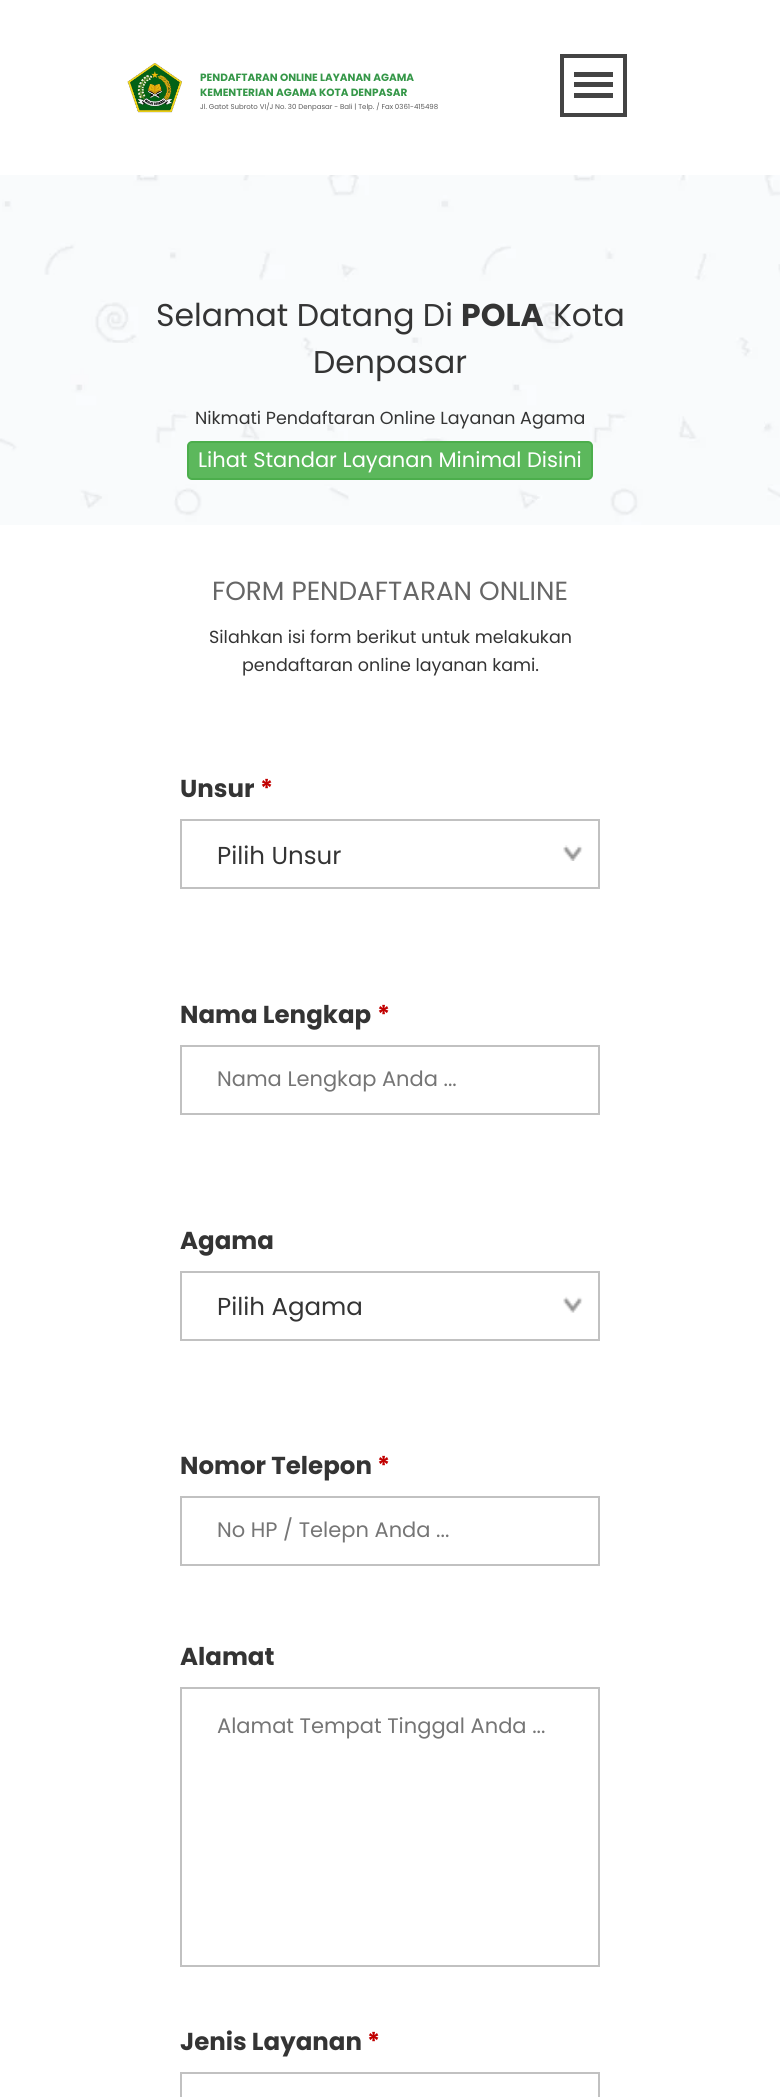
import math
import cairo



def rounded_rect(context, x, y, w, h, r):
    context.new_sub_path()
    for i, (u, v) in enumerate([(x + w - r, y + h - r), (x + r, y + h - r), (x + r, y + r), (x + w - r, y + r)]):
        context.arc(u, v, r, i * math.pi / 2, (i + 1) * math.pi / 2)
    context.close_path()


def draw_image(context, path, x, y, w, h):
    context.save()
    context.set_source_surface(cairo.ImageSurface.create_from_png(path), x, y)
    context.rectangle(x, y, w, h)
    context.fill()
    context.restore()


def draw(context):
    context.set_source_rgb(1, 1, 1)
    context.paint()
    draw_image(context, "images/1.png", 127, 63, 55, 50)
    context.rectangle(562, 56, 63, 59)
    context.set_source_rgb(68 / 255, 68 / 255, 68 / 255)
    context.set_line_width(4)
    context.stroke()
    context.rectangle(574, 72, 39, 5)
    context.fill()
    context.rectangle(574, 82, 39, 5)
    context.fill()
    context.rectangle(574, 93, 39, 5)
    context.fill()
    draw_image(context, "images/2.png", 0, 175, 780, 350)
    context.set_source_rgb(92 / 255, 184 / 255, 92 / 255)
    rounded_rect(context, 188, 442, 404, 37, 4)
    context.fill_preserve()
    context.set_source_rgb(76 / 255, 174 / 255, 76 / 255)
    context.set_line_width(2)
    context.stroke()
    draw_image(context, "images/3.png", 563, 845, 20, 16)
    context.rectangle(181, 820, 418, 68)
    context.set_source_rgb(193 / 255, 193 / 255, 193 / 255)
    context.stroke()
    context.rectangle(181, 1046, 418, 68)
    context.stroke()
    draw_image(context, "images/4.png", 563, 1296, 20, 17)
    context.rectangle(181, 1272, 418, 68)
    context.stroke()
    context.rectangle(181, 1497, 418, 68)
    context.stroke()
    context.rectangle(181, 1688, 418, 278)
    context.stroke()
    context.rectangle(181, 2073, 418, 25)
    context.stroke()
    context.select_font_face("Poppins", cairo.FontSlant.NORMAL, cairo.FontWeight.BOLD)
    context.set_font_size(10.5)
    context.set_source_rgb(53 / 255, 151 / 255, 72 / 255)
    context.move_to(200, 81)
    context.show_text("PENDAFTARAN ONLINE LAYANAN AGAMA")
    context.move_to(200, 96)
    context.show_text("KEMENTERIAN AGAMA KOTA DENPASAR")
    context.select_font_face("Poppins")
    context.set_font_size(7)
    context.set_source_rgb(88 / 255, 88 / 255, 88 / 255)
    context.move_to(200, 109)
    context.show_text("Jl. Gatot Subroto VI/J No. 30 Denpasar - Bali | Telp. / Fax 0361-415498")
    context.set_font_size(31.5)
    context.set_source_rgb(52 / 255, 52 / 255, 52 / 255)
    context.move_to(156, 326)
    context.show_text("Selamat Datang Di")
    context.select_font_face("Poppins", cairo.FontSlant.NORMAL, cairo.FontWeight.BOLD)
    context.move_to(461, 326)
    context.show_text("POLA")
    context.select_font_face("Poppins")
    context.move_to(553, 326)
    context.show_text("Kota")
    context.move_to(313, 373)
    context.show_text("Denpasar")
    context.set_font_size(17.5)
    context.move_to(195, 424)
    context.show_text("Nikmati Pendaftaran Online Layanan Agama")
    context.set_font_size(21)
    context.set_source_rgb(1, 1, 1)
    context.move_to(198, 467)
    context.show_text("Lihat Standar Layanan Minimal Disini")
    context.set_font_size(26.25)
    context.set_source_rgb(102 / 255, 102 / 255, 102 / 255)
    context.move_to(212, 600)
    context.show_text("FORM PENDAFTARAN ONLINE")
    context.set_font_size(17.5)
    context.set_source_rgb(52 / 255, 52 / 255, 52 / 255)
    context.move_to(209, 643)
    context.show_text("Silahkan isi form berikut untuk melakukan")
    context.move_to(242, 671)
    context.show_text("pendaftaran online layanan kami.")
    context.select_font_face("Poppins", cairo.FontSlant.NORMAL, cairo.FontWeight.BOLD)
    context.set_font_size(24.5)
    context.move_to(180, 797)
    context.show_text("Unsur")
    context.set_source_rgb(193 / 255, 0, 0)
    context.move_to(260, 797)
    context.show_text("*")
    context.select_font_face("Poppins")
    context.set_source_rgb(52 / 255, 52 / 255, 52 / 255)
    context.move_to(217, 864)
    context.show_text("Pilih Unsur")
    context.select_font_face("Poppins", cairo.FontSlant.NORMAL, cairo.FontWeight.BOLD)
    context.move_to(180, 1023)
    context.show_text("Nama Lengkap")
    context.set_source_rgb(193 / 255, 0, 0)
    context.move_to(377, 1023)
    context.show_text("*")
    context.select_font_face("Poppins")
    context.set_font_size(21)
    context.set_source_rgb(117 / 255, 117 / 255, 117 / 255)
    context.move_to(217, 1086)
    context.show_text("Nama Lengkap Anda ...")
    context.select_font_face("Poppins", cairo.FontSlant.NORMAL, cairo.FontWeight.BOLD)
    context.set_font_size(24.5)
    context.set_source_rgb(52 / 255, 52 / 255, 52 / 255)
    context.move_to(180, 1249)
    context.show_text("Agama")
    context.select_font_face("Poppins")
    context.move_to(217, 1315)
    context.show_text("Pilih Agama")
    context.select_font_face("Poppins", cairo.FontSlant.NORMAL, cairo.FontWeight.BOLD)
    context.move_to(180, 1474)
    context.show_text("Nomor Telepon")
    context.set_source_rgb(193 / 255, 0, 0)
    context.move_to(377, 1474)
    context.show_text("*")
    context.select_font_face("Poppins")
    context.set_font_size(21)
    context.set_source_rgb(117 / 255, 117 / 255, 117 / 255)
    context.move_to(217, 1537)
    context.show_text("No HP / Telepn Anda ...")
    context.select_font_face("Poppins", cairo.FontSlant.NORMAL, cairo.FontWeight.BOLD)
    context.set_font_size(24.5)
    context.set_source_rgb(52 / 255, 52 / 255, 52 / 255)
    context.move_to(180, 1665)
    context.show_text("Alamat")
    context.select_font_face("Poppins")
    context.set_font_size(21)
    context.set_source_rgb(117 / 255, 117 / 255, 117 / 255)
    context.move_to(217, 1733)
    context.show_text("Alamat Tempat Tinggal Anda ...")
    context.select_font_face("Poppins", cairo.FontSlant.NORMAL, cairo.FontWeight.BOLD)
    context.set_font_size(24.5)
    context.set_source_rgb(52 / 255, 52 / 255, 52 / 255)
    context.move_to(180, 2050)
    context.show_text("Jenis Layanan")
    context.set_source_rgb(193 / 255, 0, 0)
    context.move_to(367, 2050)
    context.show_text("*")


surface = cairo.ImageSurface(cairo.Format.RGB24, 780, 2097)
context = cairo.Context(surface)
options = cairo.FontOptions()
options.set_hint_metrics(cairo.HintMetrics.OFF)
options.set_hint_style(cairo.HintStyle.NONE)
context.set_font_options(options)
context.set_miter_limit(4)
draw(context)
surface.write_to_png("out.png")
